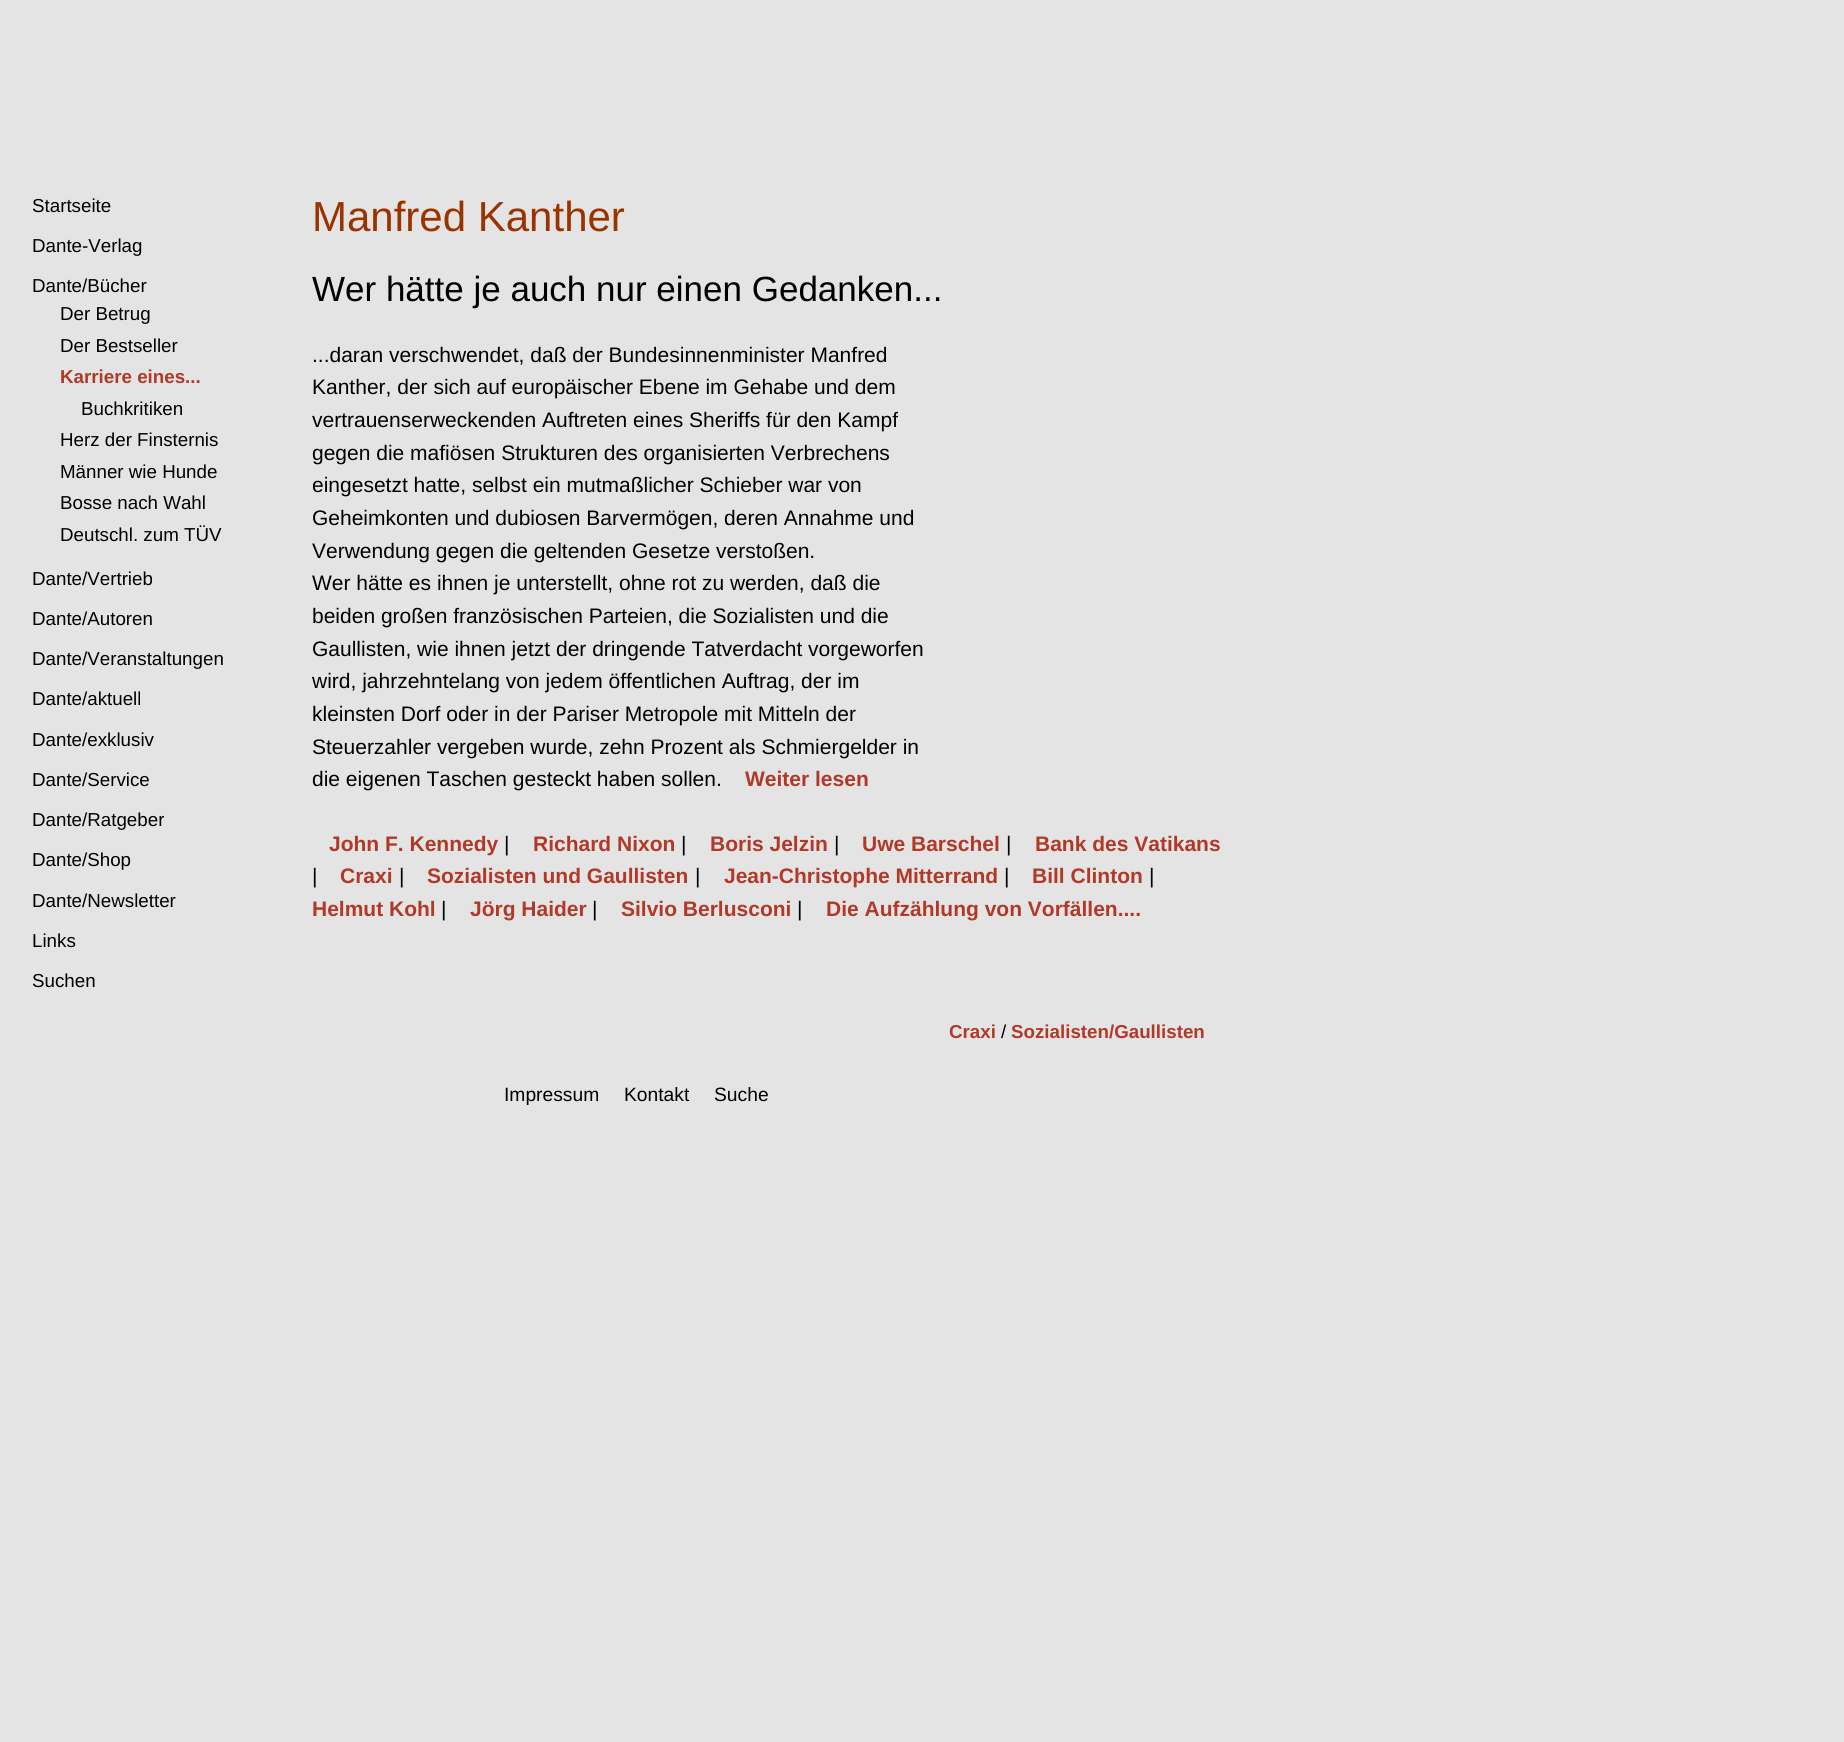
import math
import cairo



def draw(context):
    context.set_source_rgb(228 / 255, 228 / 255, 228 / 255)
    context.paint()
    context.select_font_face("Liberation Sans")
    context.set_font_size(18.75)
    context.set_source_rgb(0, 0, 0)
    context.move_to(32, 212)
    context.show_text("Startseite")
    context.move_to(32, 252)
    context.show_text("Dante-Verlag")
    context.move_to(32, 292)
    context.show_text("Dante/Bücher")
    context.move_to(60, 320)
    context.show_text("Der Betrug")
    context.move_to(60, 352)
    context.show_text("Der Bestseller")
    context.select_font_face("Liberation Sans", cairo.FontSlant.NORMAL, cairo.FontWeight.BOLD)
    context.set_source_rgb(176 / 255, 57 / 255, 40 / 255)
    context.move_to(60, 383)
    context.show_text("Karriere eines...")
    context.select_font_face("Liberation Sans")
    context.set_source_rgb(0, 0, 0)
    context.move_to(81, 415)
    context.show_text("Buchkritiken")
    context.move_to(60, 446)
    context.show_text("Herz der Finsternis")
    context.move_to(60, 478)
    context.show_text("Männer wie Hunde")
    context.move_to(60, 509)
    context.show_text("Bosse nach Wahl")
    context.move_to(60, 541)
    context.show_text("Deutschl. zum TÜV")
    context.move_to(32, 585)
    context.show_text("Dante/Vertrieb")
    context.move_to(32, 625)
    context.show_text("Dante/Autoren")
    context.move_to(32, 665)
    context.show_text("Dante/Veranstaltungen")
    context.move_to(32, 705)
    context.show_text("Dante/aktuell")
    context.move_to(32, 746)
    context.show_text("Dante/exklusiv")
    context.move_to(32, 786)
    context.show_text("Dante/Service")
    context.move_to(32, 826)
    context.show_text("Dante/Ratgeber")
    context.move_to(32, 866)
    context.show_text("Dante/Shop")
    context.move_to(32, 907)
    context.show_text("Dante/Newsletter")
    context.move_to(32, 947)
    context.show_text("Links")
    context.move_to(32, 987)
    context.show_text("Suchen")
    context.set_font_size(42)
    context.set_source_rgb(153 / 255, 51 / 255, 0)
    context.move_to(312, 231)
    context.show_text("Manfred Kanther")
    context.set_font_size(35)
    context.set_source_rgb(0, 0, 0)
    context.move_to(312, 301)
    context.show_text("Wer hätte je auch nur einen Gedanken...")
    context.set_font_size(21)
    context.move_to(312, 362)
    context.show_text("...daran verschwendet, daß der Bundesinnenminister Manfred")
    context.move_to(312, 394)
    context.show_text("Kanther, der sich auf europäischer Ebene im Gehabe und dem")
    context.move_to(312, 427)
    context.show_text("vertrauenserweckenden Auftreten eines Sheriffs für den Kampf")
    context.move_to(312, 460)
    context.show_text("gegen die mafiösen Strukturen des organisierten Verbrechens")
    context.move_to(312, 492)
    context.show_text("eingesetzt hatte, selbst ein mutmaßlicher Schieber war von")
    context.move_to(312, 525)
    context.show_text("Geheimkonten und dubiosen Barvermögen, deren Annahme und")
    context.move_to(312, 558)
    context.show_text("Verwendung gegen die geltenden Gesetze verstoßen.")
    context.move_to(312, 590)
    context.show_text("Wer hätte es ihnen je unterstellt, ohne rot zu werden, daß die")
    context.move_to(312, 623)
    context.show_text("beiden großen französischen Parteien, die Sozialisten und die")
    context.move_to(312, 656)
    context.show_text("Gaullisten, wie ihnen jetzt der dringende Tatverdacht vorgeworfen")
    context.move_to(312, 688)
    context.show_text("wird, jahrzehntelang von jedem öffentlichen Auftrag, der im")
    context.move_to(312, 721)
    context.show_text("kleinsten Dorf oder in der Pariser Metropole mit Mitteln der")
    context.move_to(312, 754)
    context.show_text("Steuerzahler vergeben wurde, zehn Prozent als Schmiergelder in")
    context.move_to(312, 786)
    context.show_text("die eigenen Taschen gesteckt haben sollen.")
    context.select_font_face("Liberation Sans", cairo.FontSlant.NORMAL, cairo.FontWeight.BOLD)
    context.set_source_rgb(176 / 255, 57 / 255, 40 / 255)
    context.move_to(745, 786)
    context.show_text("Weiter lesen")
    context.move_to(329, 851)
    context.show_text("John F. Kennedy")
    context.select_font_face("Liberation Sans")
    context.set_source_rgb(0, 0, 0)
    context.move_to(504, 851)
    context.show_text("|")
    context.select_font_face("Liberation Sans", cairo.FontSlant.NORMAL, cairo.FontWeight.BOLD)
    context.set_source_rgb(176 / 255, 57 / 255, 40 / 255)
    context.move_to(533, 851)
    context.show_text("Richard Nixon")
    context.select_font_face("Liberation Sans")
    context.set_source_rgb(0, 0, 0)
    context.move_to(681, 851)
    context.show_text("|")
    context.select_font_face("Liberation Sans", cairo.FontSlant.NORMAL, cairo.FontWeight.BOLD)
    context.set_source_rgb(176 / 255, 57 / 255, 40 / 255)
    context.move_to(710, 851)
    context.show_text("Boris Jelzin")
    context.select_font_face("Liberation Sans")
    context.set_source_rgb(0, 0, 0)
    context.move_to(834, 851)
    context.show_text("|")
    context.select_font_face("Liberation Sans", cairo.FontSlant.NORMAL, cairo.FontWeight.BOLD)
    context.set_source_rgb(176 / 255, 57 / 255, 40 / 255)
    context.move_to(862, 851)
    context.show_text("Uwe Barschel")
    context.select_font_face("Liberation Sans")
    context.set_source_rgb(0, 0, 0)
    context.move_to(1006, 851)
    context.show_text("|")
    context.select_font_face("Liberation Sans", cairo.FontSlant.NORMAL, cairo.FontWeight.BOLD)
    context.set_source_rgb(176 / 255, 57 / 255, 40 / 255)
    context.move_to(1035, 851)
    context.show_text("Bank des Vatikans")
    context.select_font_face("Liberation Sans")
    context.set_source_rgb(0, 0, 0)
    context.move_to(312, 883)
    context.show_text("|")
    context.select_font_face("Liberation Sans", cairo.FontSlant.NORMAL, cairo.FontWeight.BOLD)
    context.set_source_rgb(176 / 255, 57 / 255, 40 / 255)
    context.move_to(340, 883)
    context.show_text("Craxi")
    context.select_font_face("Liberation Sans")
    context.set_source_rgb(0, 0, 0)
    context.move_to(399, 883)
    context.show_text("|")
    context.select_font_face("Liberation Sans", cairo.FontSlant.NORMAL, cairo.FontWeight.BOLD)
    context.set_source_rgb(176 / 255, 57 / 255, 40 / 255)
    context.move_to(427, 883)
    context.show_text("Sozialisten und Gaullisten")
    context.select_font_face("Liberation Sans")
    context.set_source_rgb(0, 0, 0)
    context.move_to(695, 883)
    context.show_text("|")
    context.select_font_face("Liberation Sans", cairo.FontSlant.NORMAL, cairo.FontWeight.BOLD)
    context.set_source_rgb(176 / 255, 57 / 255, 40 / 255)
    context.move_to(724, 883)
    context.show_text("Jean-Christophe Mitterrand")
    context.select_font_face("Liberation Sans")
    context.set_source_rgb(0, 0, 0)
    context.move_to(1004, 883)
    context.show_text("|")
    context.select_font_face("Liberation Sans", cairo.FontSlant.NORMAL, cairo.FontWeight.BOLD)
    context.set_source_rgb(176 / 255, 57 / 255, 40 / 255)
    context.move_to(1032, 883)
    context.show_text("Bill Clinton")
    context.select_font_face("Liberation Sans")
    context.set_source_rgb(0, 0, 0)
    context.move_to(1149, 883)
    context.show_text("|")
    context.select_font_face("Liberation Sans", cairo.FontSlant.NORMAL, cairo.FontWeight.BOLD)
    context.set_source_rgb(176 / 255, 57 / 255, 40 / 255)
    context.move_to(312, 916)
    context.show_text("Helmut Kohl")
    context.select_font_face("Liberation Sans")
    context.set_source_rgb(0, 0, 0)
    context.move_to(441, 916)
    context.show_text("|")
    context.select_font_face("Liberation Sans", cairo.FontSlant.NORMAL, cairo.FontWeight.BOLD)
    context.set_source_rgb(176 / 255, 57 / 255, 40 / 255)
    context.move_to(470, 916)
    context.show_text("Jörg Haider")
    context.select_font_face("Liberation Sans")
    context.set_source_rgb(0, 0, 0)
    context.move_to(592, 916)
    context.show_text("|")
    context.select_font_face("Liberation Sans", cairo.FontSlant.NORMAL, cairo.FontWeight.BOLD)
    context.set_source_rgb(176 / 255, 57 / 255, 40 / 255)
    context.move_to(621, 916)
    context.show_text("Silvio Berlusconi")
    context.select_font_face("Liberation Sans")
    context.set_source_rgb(0, 0, 0)
    context.move_to(797, 916)
    context.show_text("|")
    context.select_font_face("Liberation Sans", cairo.FontSlant.NORMAL, cairo.FontWeight.BOLD)
    context.set_source_rgb(176 / 255, 57 / 255, 40 / 255)
    context.move_to(826, 916)
    context.show_text("Die Aufzählung von Vorfällen....")
    context.set_font_size(18.75)
    context.move_to(949, 1038)
    context.show_text("Craxi")
    context.select_font_face("Liberation Sans")
    context.set_source_rgb(0, 0, 0)
    context.move_to(1001, 1038)
    context.show_text("/")
    context.select_font_face("Liberation Sans", cairo.FontSlant.NORMAL, cairo.FontWeight.BOLD)
    context.set_source_rgb(176 / 255, 57 / 255, 40 / 255)
    context.move_to(1011, 1038)
    context.show_text("Sozialisten/Gaullisten")
    context.select_font_face("Liberation Sans")
    context.set_font_size(19.25)
    context.set_source_rgb(0, 0, 0)
    context.move_to(504, 1101)
    context.show_text("Impressum")
    context.move_to(624, 1101)
    context.show_text("Kontakt")
    context.move_to(714, 1101)
    context.show_text("Suche")


surface = cairo.ImageSurface(cairo.Format.RGB24, 1844, 1742)
context = cairo.Context(surface)
options = cairo.FontOptions()
options.set_hint_metrics(cairo.HintMetrics.OFF)
options.set_hint_style(cairo.HintStyle.NONE)
context.set_font_options(options)
context.set_miter_limit(4)
draw(context)
surface.write_to_png("out.png")
